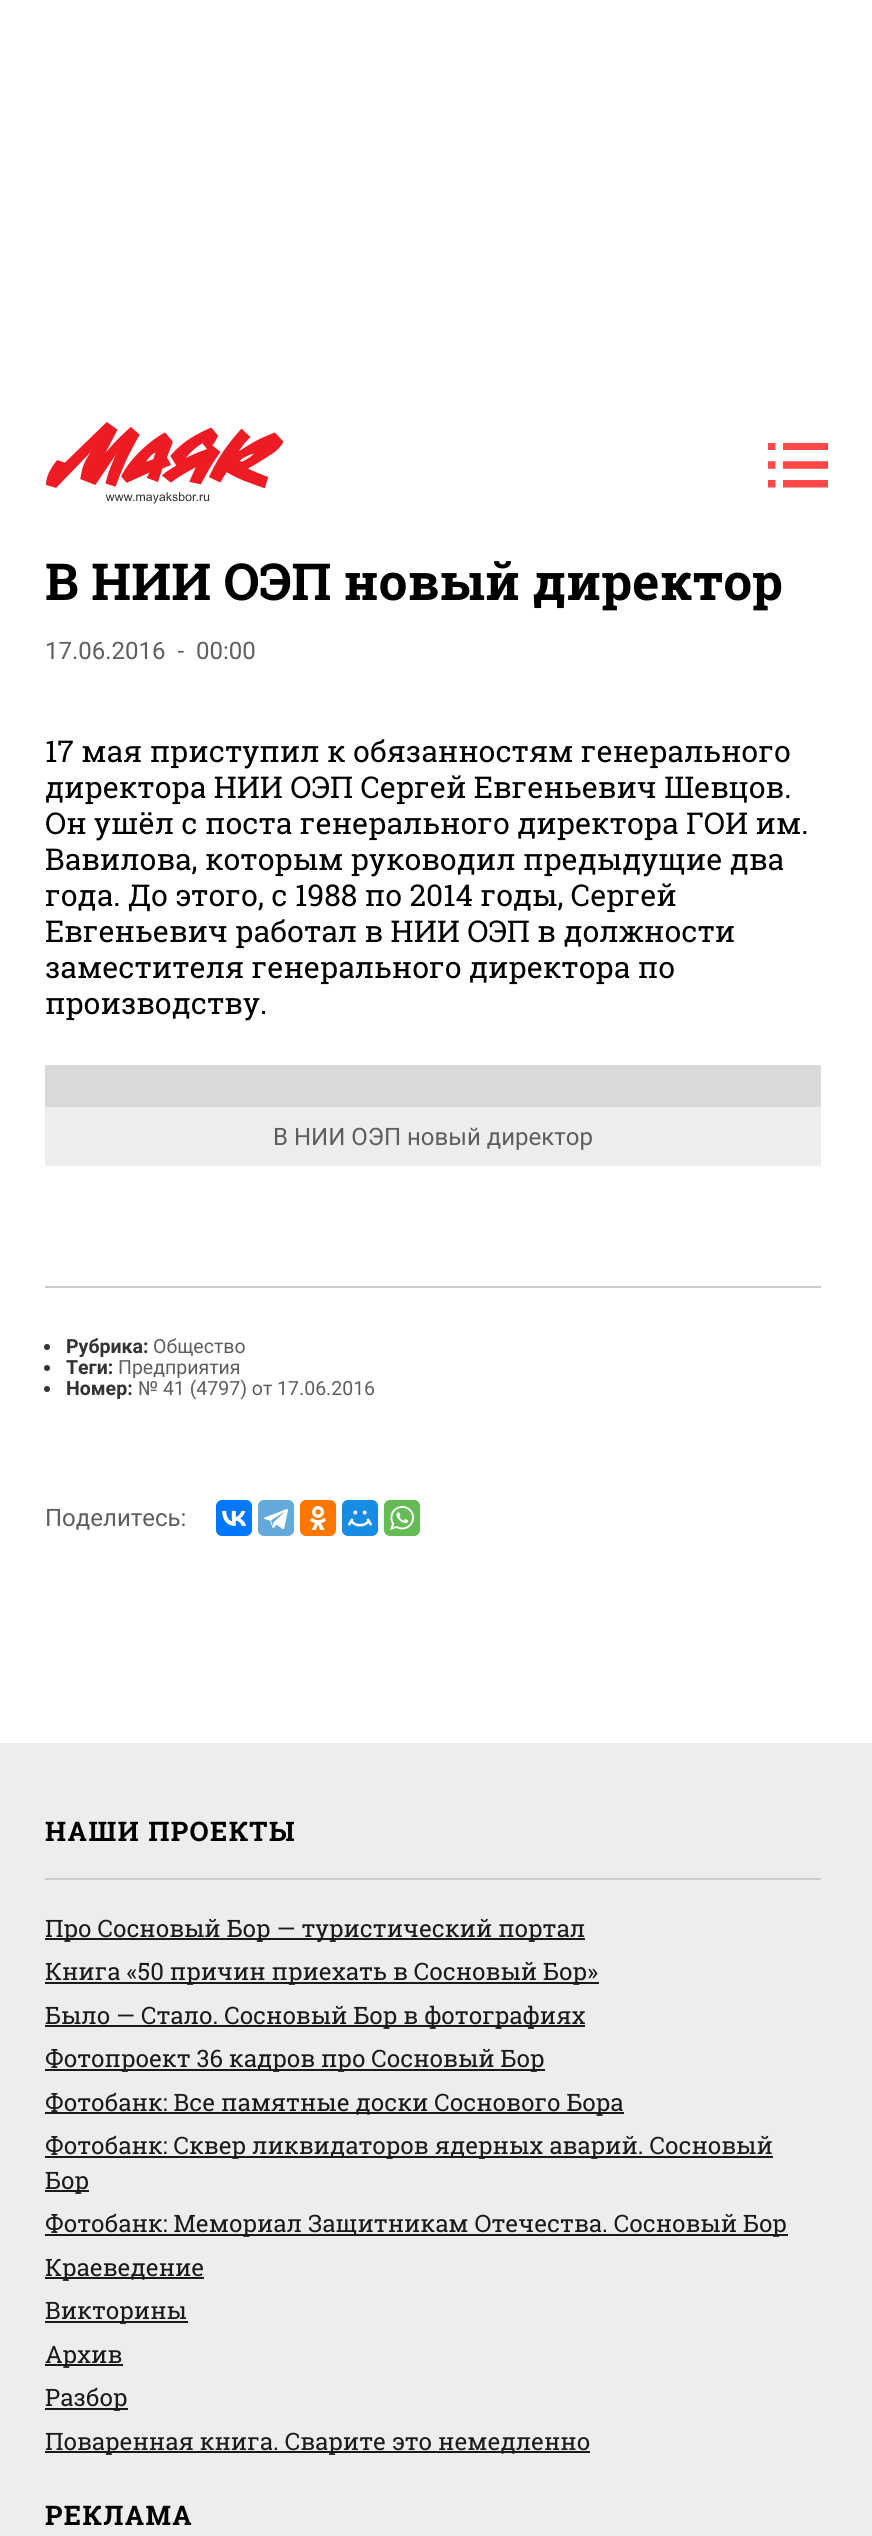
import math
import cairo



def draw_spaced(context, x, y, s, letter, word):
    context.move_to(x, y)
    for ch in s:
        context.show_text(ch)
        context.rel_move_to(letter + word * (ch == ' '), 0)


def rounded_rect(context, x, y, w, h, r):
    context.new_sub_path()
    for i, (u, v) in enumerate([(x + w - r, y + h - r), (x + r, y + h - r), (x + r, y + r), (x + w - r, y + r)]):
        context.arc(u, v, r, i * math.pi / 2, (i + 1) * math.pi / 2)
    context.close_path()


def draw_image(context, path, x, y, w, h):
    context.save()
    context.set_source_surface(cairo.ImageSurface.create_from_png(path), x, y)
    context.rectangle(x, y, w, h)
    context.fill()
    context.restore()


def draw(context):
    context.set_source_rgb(1, 1, 1)
    context.paint()
    draw_image(context, "images/1.png", 45, 422, 239, 82)
    draw_image(context, "images/2.png", 768, 443, 60, 45)
    context.set_source_rgb(217 / 255, 217 / 255, 217 / 255)
    context.rectangle(45, 1065, 776, 42)
    context.fill()
    context.set_source_rgb(237 / 255, 237 / 255, 237 / 255)
    context.rectangle(45, 1107, 776, 59)
    context.fill()
    context.set_source_rgb(204 / 255, 204 / 255, 204 / 255)
    context.rectangle(45, 1286, 776, 2)
    context.fill()
    context.set_source_rgb(51 / 255, 51 / 255, 51 / 255)
    context.arc(47, 1347, 3, 0, 2 * math.pi)
    context.fill()
    context.arc(47, 1368, 3, 0, 2 * math.pi)
    context.fill()
    context.arc(47, 1389, 3, 0, 2 * math.pi)
    context.fill()
    context.set_source_rgb(0, 119 / 255, 1)
    rounded_rect(context, 216, 1500, 36, 36, 6)
    context.fill()
    draw_image(context, "images/3.png", 222, 1510, 24, 16)
    context.set_source_rgb(100 / 255, 169 / 255, 220 / 255)
    rounded_rect(context, 258, 1500, 36, 36, 6)
    context.fill()
    draw_image(context, "images/4.png", 264, 1509, 24, 21)
    context.set_source_rgb(1, 119 / 255, 0)
    rounded_rect(context, 300, 1500, 36, 36, 6)
    context.fill()
    draw_image(context, "images/5.png", 310, 1506, 17, 24)
    context.set_source_rgb(22 / 255, 141 / 255, 226 / 255)
    rounded_rect(context, 342, 1500, 36, 36, 6)
    context.fill()
    draw_image(context, "images/6.png", 348, 1510, 24, 17)
    context.set_source_rgb(101 / 255, 188 / 255, 84 / 255)
    rounded_rect(context, 384, 1500, 36, 36, 6)
    context.fill()
    draw_image(context, "images/7.png", 390, 1506, 24, 24)
    context.set_source_rgb(237 / 255, 237 / 255, 237 / 255)
    context.rectangle(0, 1743, 872, 793)
    context.fill()
    context.set_source_rgb(204 / 255, 204 / 255, 204 / 255)
    context.rectangle(45, 1878, 776, 2)
    context.fill()
    context.set_source_rgb(26 / 255, 26 / 255, 26 / 255)
    context.rectangle(45, 1938, 540, 2)
    context.fill()
    context.rectangle(45, 1982, 554, 2)
    context.fill()
    context.rectangle(45, 2025, 540, 2)
    context.fill()
    context.rectangle(45, 2069, 500, 2)
    context.fill()
    context.rectangle(45, 2112, 579, 2)
    context.fill()
    context.rectangle(45, 2156, 728, 2)
    context.fill()
    context.rectangle(45, 2190, 44, 2)
    context.fill()
    context.rectangle(45, 2234, 743, 2)
    context.fill()
    context.rectangle(45, 2277, 159, 2)
    context.fill()
    context.rectangle(45, 2321, 143, 2)
    context.fill()
    context.rectangle(45, 2364, 78, 2)
    context.fill()
    context.rectangle(45, 2408, 83, 2)
    context.fill()
    context.rectangle(45, 2451, 545, 2)
    context.fill()
    context.select_font_face("Roboto Slab", cairo.FontSlant.NORMAL, cairo.FontWeight.BOLD)
    context.set_font_size(51)
    context.set_source_rgb(0, 0, 0)
    context.move_to(45, 600)
    context.show_text("В НИИ ОЭП новый директор")
    context.select_font_face("Roboto")
    context.set_font_size(24)
    context.set_source_rgb(94 / 255, 94 / 255, 94 / 255)
    context.move_to(45, 659)
    context.show_text("17.06.2016  -  00:00")
    context.select_font_face("Roboto Slab")
    context.set_font_size(30)
    context.set_source_rgb(0, 0, 0)
    context.move_to(45, 762)
    context.show_text("17 мая приступил к обязанностям генерального")
    context.move_to(45, 798)
    context.show_text("директора НИИ ОЭП Сергей Евгеньевич Шевцов.")
    context.move_to(45, 834)
    context.show_text("Он ушёл с поста генерального директора ГОИ им.")
    context.move_to(45, 870)
    context.show_text("Вавилова, которым руководил предыдущие два")
    context.move_to(45, 906)
    context.show_text("года. До этого, с 1988 по 2014 годы, Сергей")
    context.move_to(45, 942)
    context.show_text("Евгеньевич работал в НИИ ОЭП в должности")
    context.move_to(45, 978)
    context.show_text("заместителя генерального директора по")
    context.move_to(45, 1014)
    context.show_text("производству.")
    context.select_font_face("Roboto")
    context.set_font_size(24)
    context.set_source_rgb(94 / 255, 94 / 255, 94 / 255)
    context.move_to(273, 1145)
    context.show_text("В НИИ ОЭП новый директор")
    context.select_font_face("Roboto", cairo.FontSlant.NORMAL, cairo.FontWeight.BOLD)
    context.set_font_size(19.5)
    context.set_source_rgb(51 / 255, 51 / 255, 51 / 255)
    context.move_to(66, 1353)
    context.show_text("Рубрика:")
    context.select_font_face("Roboto")
    context.set_source_rgb(94 / 255, 94 / 255, 94 / 255)
    context.move_to(153, 1353)
    context.show_text("Общество")
    context.select_font_face("Roboto", cairo.FontSlant.NORMAL, cairo.FontWeight.BOLD)
    context.set_source_rgb(51 / 255, 51 / 255, 51 / 255)
    context.move_to(66, 1374)
    context.show_text("Теги:")
    context.select_font_face("Roboto")
    context.set_source_rgb(94 / 255, 94 / 255, 94 / 255)
    context.move_to(118, 1374)
    context.show_text("Предприятия")
    context.select_font_face("Roboto", cairo.FontSlant.NORMAL, cairo.FontWeight.BOLD)
    context.set_source_rgb(51 / 255, 51 / 255, 51 / 255)
    context.move_to(66, 1395)
    context.show_text("Номер:")
    context.select_font_face("Roboto")
    context.set_source_rgb(94 / 255, 94 / 255, 94 / 255)
    context.move_to(138, 1395)
    context.show_text("№ 41 (4797) от 17.06.2016")
    context.set_font_size(24)
    context.move_to(45, 1526)
    context.show_text("Поделитесь:")
    context.select_font_face("Roboto Slab", cairo.FontSlant.NORMAL, cairo.FontWeight.BOLD)
    context.set_font_size(27)
    context.set_source_rgb(0, 0, 0)
    draw_spaced(context, 45, 1841, "НАШИ ПРОЕКТЫ", 1.4, 0)
    context.select_font_face("Roboto Slab")
    context.set_font_size(24)
    context.set_source_rgb(26 / 255, 26 / 255, 26 / 255)
    context.move_to(45, 1937)
    context.show_text("Про Сосновый Бор — туристический портал")
    context.move_to(45, 1980)
    context.show_text("Книга «50 причин приехать в Сосновый Бор»")
    context.move_to(45, 2024)
    context.show_text("Было — Стало. Сосновый Бор в фотографиях")
    context.move_to(45, 2067)
    context.show_text("Фотопроект 36 кадров про Сосновый Бор")
    context.move_to(45, 2111)
    context.show_text("Фотобанк: Все памятные доски Соснового Бора")
    context.move_to(45, 2154)
    context.show_text("Фотобанк: Сквер ликвидаторов ядерных аварий. Сосновый")
    context.move_to(45, 2189)
    context.show_text("Бор")
    context.move_to(45, 2232)
    context.show_text("Фотобанк: Мемориал Защитникам Отечества. Сосновый Бор")
    context.move_to(45, 2276)
    context.show_text("Краеведение")
    context.move_to(45, 2319)
    context.show_text("Викторины")
    context.move_to(45, 2363)
    context.show_text("Архив")
    context.move_to(45, 2406)
    context.show_text("Разбор")
    context.move_to(45, 2450)
    context.show_text("Поваренная книга. Сварите это немедленно")
    context.select_font_face("Roboto Slab", cairo.FontSlant.NORMAL, cairo.FontWeight.BOLD)
    context.set_font_size(27)
    context.set_source_rgb(0, 0, 0)
    draw_spaced(context, 45, 2525, "РЕКЛАМА", 1.4, 0)


surface = cairo.ImageSurface(cairo.Format.RGB24, 872, 2536)
context = cairo.Context(surface)
options = cairo.FontOptions()
options.set_hint_metrics(cairo.HintMetrics.OFF)
options.set_hint_style(cairo.HintStyle.NONE)
context.set_font_options(options)
context.set_miter_limit(4)
draw(context)
surface.write_to_png("out.png")
